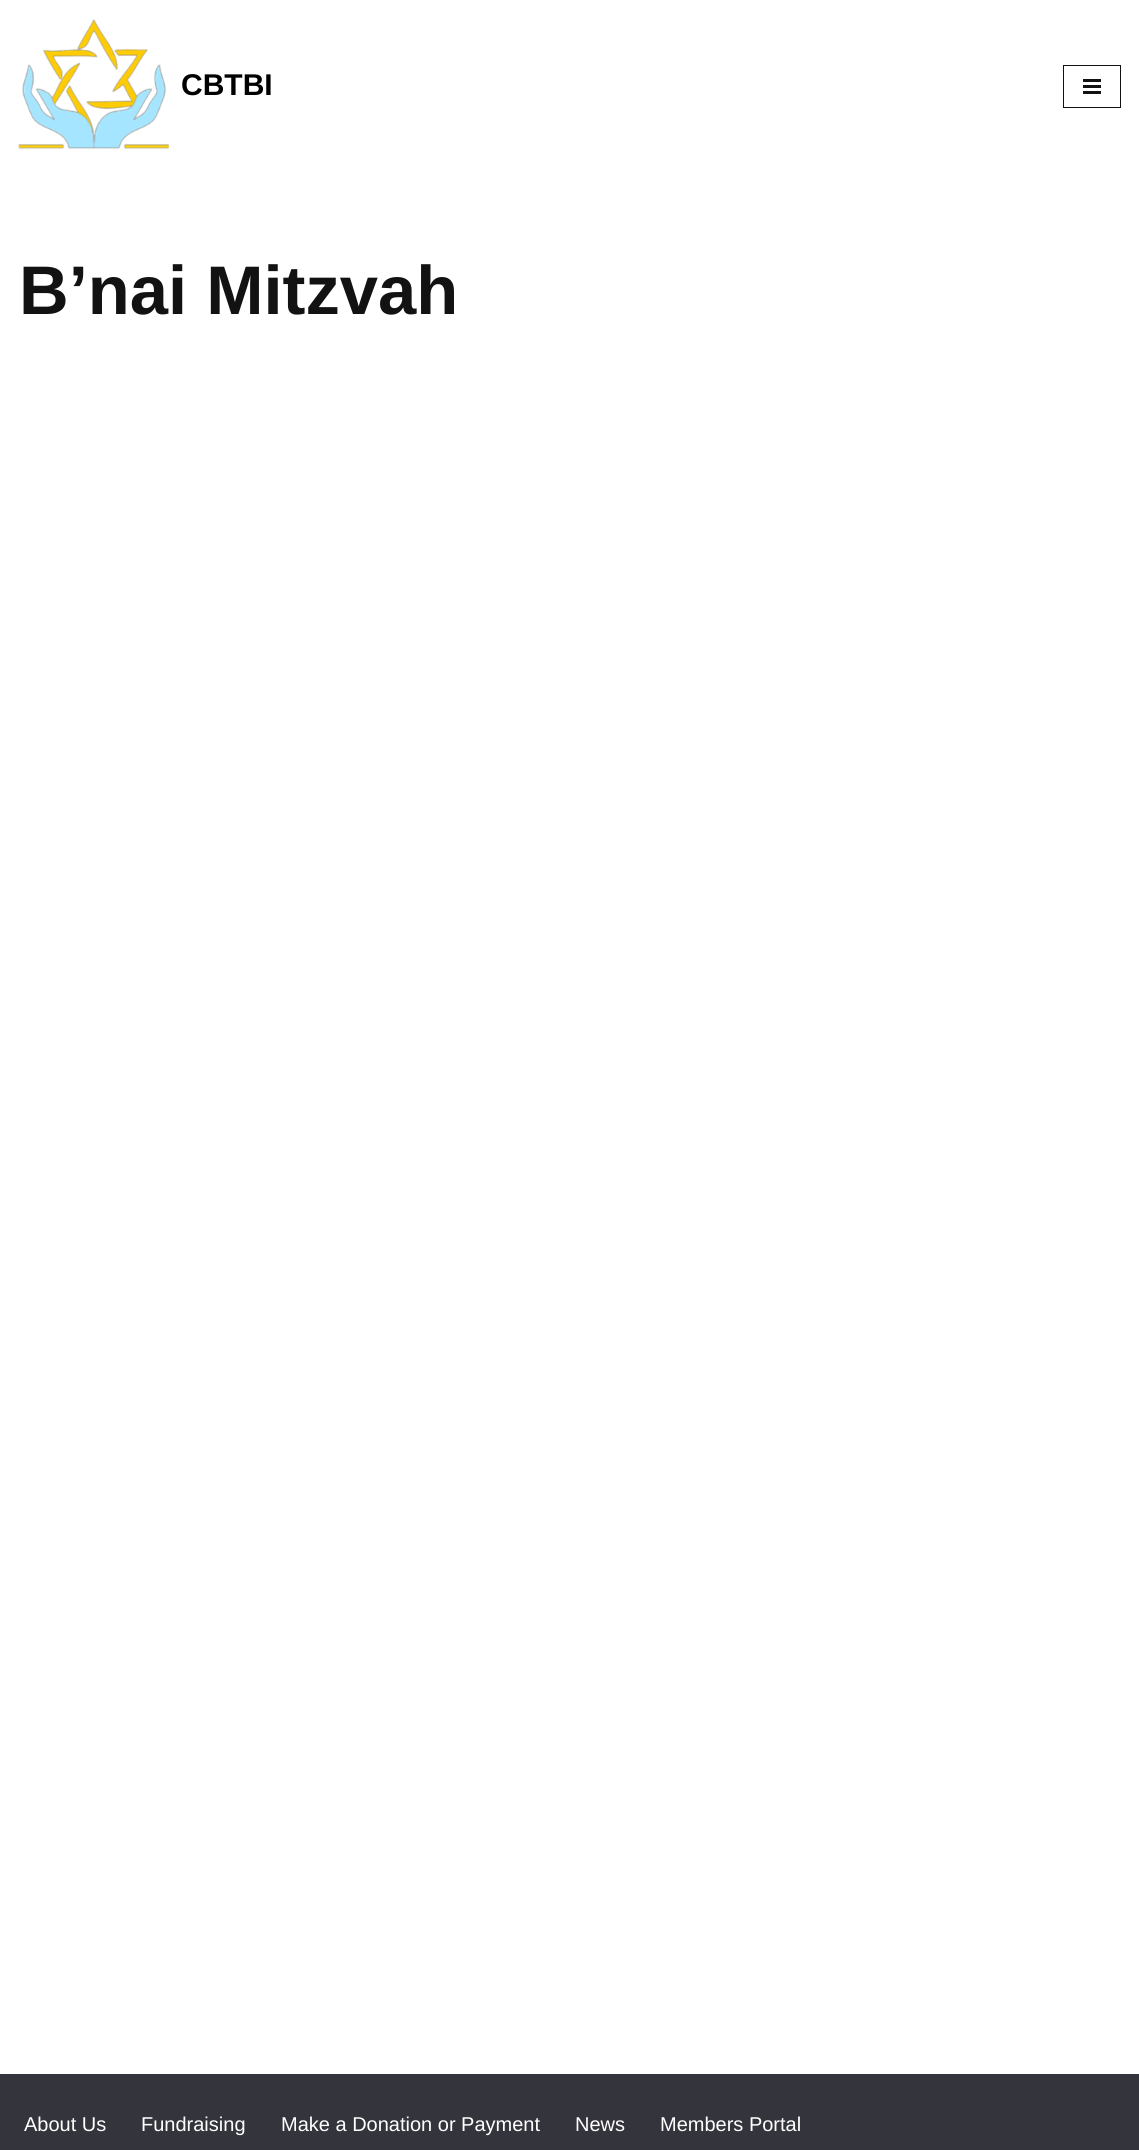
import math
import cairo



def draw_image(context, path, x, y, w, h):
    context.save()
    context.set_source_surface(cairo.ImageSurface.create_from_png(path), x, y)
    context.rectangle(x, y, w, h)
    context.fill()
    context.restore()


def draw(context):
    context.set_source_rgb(1, 1, 1)
    context.paint()
    draw_image(context, "images/1.png", 18, 19, 151, 130)
    context.rectangle(1063.5, 65.5, 57, 42)
    context.set_source_rgb(18 / 255, 18 / 255, 18 / 255)
    context.set_line_width(1)
    context.stroke()
    context.rectangle(1083, 79, 18, 3)
    context.fill()
    context.rectangle(1083, 85, 18, 3)
    context.fill()
    context.rectangle(1083, 91, 18, 3)
    context.fill()
    context.set_source_rgb(52 / 255, 52 / 255, 61 / 255)
    context.rectangle(0, 2074, 1139, 76)
    context.fill()
    context.select_font_face("Liberation Sans", cairo.FontSlant.NORMAL, cairo.FontWeight.BOLD)
    context.set_font_size(30)
    context.set_source_rgb(0, 0, 0)
    context.move_to(181, 95)
    context.show_text("CBTBI")
    context.set_font_size(68.75)
    context.set_source_rgb(18 / 255, 18 / 255, 18 / 255)
    context.move_to(19, 314)
    context.show_text("B’nai Mitzvah")
    context.select_font_face("Liberation Sans")
    context.set_font_size(20)
    context.set_source_rgb(1, 1, 1)
    context.move_to(24, 2131)
    context.show_text("About Us")
    context.move_to(141, 2131)
    context.show_text("Fundraising")
    context.move_to(281, 2131)
    context.show_text("Make a Donation or Payment")
    context.move_to(575, 2131)
    context.show_text("News")
    context.move_to(660, 2131)
    context.show_text("Members Portal")


surface = cairo.ImageSurface(cairo.Format.RGB24, 1139, 2150)
context = cairo.Context(surface)
options = cairo.FontOptions()
options.set_hint_metrics(cairo.HintMetrics.OFF)
options.set_hint_style(cairo.HintStyle.NONE)
context.set_font_options(options)
context.set_miter_limit(4)
draw(context)
surface.write_to_png("out.png")
